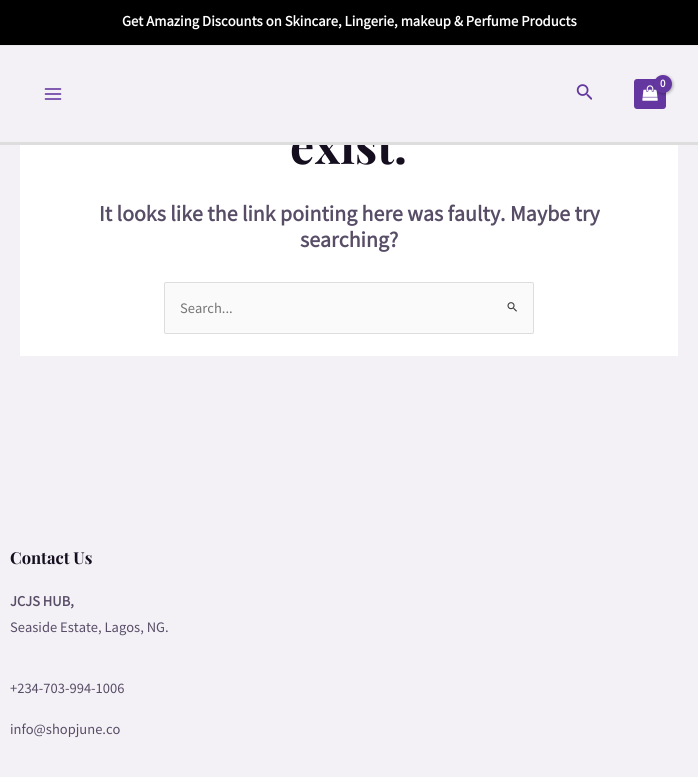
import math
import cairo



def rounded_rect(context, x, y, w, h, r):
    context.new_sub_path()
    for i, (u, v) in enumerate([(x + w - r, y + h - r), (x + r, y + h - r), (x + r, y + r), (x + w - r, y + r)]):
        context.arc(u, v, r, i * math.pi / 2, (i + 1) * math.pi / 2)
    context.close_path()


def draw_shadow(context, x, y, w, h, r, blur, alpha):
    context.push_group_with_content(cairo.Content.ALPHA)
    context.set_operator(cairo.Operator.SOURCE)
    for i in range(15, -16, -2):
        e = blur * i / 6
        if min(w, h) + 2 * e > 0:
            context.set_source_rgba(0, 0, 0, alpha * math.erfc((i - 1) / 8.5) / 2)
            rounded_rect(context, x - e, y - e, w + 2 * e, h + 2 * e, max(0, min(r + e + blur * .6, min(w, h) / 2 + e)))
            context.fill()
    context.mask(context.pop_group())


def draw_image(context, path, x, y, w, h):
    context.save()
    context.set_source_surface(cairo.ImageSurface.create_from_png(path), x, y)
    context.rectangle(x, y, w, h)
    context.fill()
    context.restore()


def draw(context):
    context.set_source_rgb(243 / 255, 241 / 255, 246 / 255)
    context.paint()
    context.set_source_rgb(0, 0, 0)
    context.rectangle(0, 0, 698, 45)
    context.fill()
    context.set_source_rgb(234 / 255, 234 / 255, 234 / 255)
    context.rectangle(0, 45, 698, 1)
    context.fill()
    draw_image(context, "images/1.png", 576, 84, 16, 16)
    context.set_source_rgb(100 / 255, 55 / 255, 160 / 255)
    rounded_rect(context, 634, 79, 32, 30, 3)
    context.fill()
    draw_image(context, "images/2.png", 642, 85, 16, 16)
    context.set_source_rgb(0, 0, 0)
    draw_shadow(context, 655, 76, 18, 18, 9, 1.5, 0.3)
    context.set_source_rgb(100 / 255, 55 / 255, 160 / 255)
    context.arc(663, 84, 9, 0, 2 * math.pi)
    context.fill()
    draw_image(context, "images/3.png", 44, 88, 18, 12)
    context.set_source_rgb(1, 1, 1)
    context.rectangle(20, 145, 658, 211)
    context.fill()
    context.set_source_rgb(250 / 255, 250 / 255, 250 / 255)
    rounded_rect(context, 164.5, 282.5, 369, 51, 1.5)
    context.fill_preserve()
    context.set_source_rgb(221 / 255, 221 / 255, 221 / 255)
    context.set_line_width(1)
    context.stroke()
    draw_image(context, "images/4.png", 507, 302, 10, 10)
    context.select_font_face("Source Sans Pro", cairo.FontSlant.NORMAL, cairo.FontWeight.BOLD)
    context.set_font_size(14.7)
    context.set_source_rgb(1, 1, 1)
    context.move_to(122, 26)
    context.show_text("Get Amazing Discounts on Skincare, Lingerie, makeup & Perfume Products")
    context.set_font_size(11)
    context.move_to(660, 87)
    context.show_text("0")
    context.select_font_face("Playfair Display", cairo.FontSlant.NORMAL, cairo.FontWeight.BOLD)
    context.set_font_size(48)
    context.set_source_rgb(21 / 255, 14 / 255, 31 / 255)
    context.move_to(290, 164)
    context.show_text("exist.")
    context.set_source_rgb(221 / 255, 221 / 255, 221 / 255)
    context.rectangle(0, 142, 698, 3)
    context.fill()
    context.set_source_rgb(243 / 255, 241 / 255, 246 / 255)
    context.rectangle(295, 126, 100, 16)
    context.fill()
    context.select_font_face("Source Sans Pro", cairo.FontSlant.NORMAL, cairo.FontWeight.BOLD)
    context.set_font_size(21.9)
    context.set_source_rgb(88 / 255, 77 / 255, 102 / 255)
    context.move_to(99, 221)
    context.show_text("It looks like the link pointing here was faulty. Maybe try")
    context.move_to(300, 247)
    context.show_text("searching?")
    context.select_font_face("Source Sans Pro")
    context.set_font_size(14.5)
    context.set_source_rgb(117 / 255, 117 / 255, 117 / 255)
    context.move_to(180, 313)
    context.show_text("Search...")
    context.select_font_face("Playfair Display", cairo.FontSlant.NORMAL, cairo.FontWeight.BOLD)
    context.set_font_size(16.5)
    context.set_source_rgb(21 / 255, 14 / 255, 31 / 255)
    context.move_to(10, 564)
    context.show_text("Contact Us")
    context.select_font_face("Source Sans Pro", cairo.FontSlant.NORMAL, cairo.FontWeight.BOLD)
    context.set_font_size(14.5)
    context.set_source_rgb(88 / 255, 77 / 255, 102 / 255)
    context.move_to(10, 606)
    context.show_text("JCJS HUB,")
    context.select_font_face("Source Sans Pro")
    context.move_to(10, 632)
    context.show_text("Seaside Estate, Lagos, NG.")
    context.move_to(10, 693)
    context.show_text("+234-703-994-1006")
    context.move_to(10, 734)
    context.show_text("info@shopjune.co")


surface = cairo.ImageSurface(cairo.Format.RGB24, 698, 777)
context = cairo.Context(surface)
options = cairo.FontOptions()
options.set_hint_metrics(cairo.HintMetrics.OFF)
options.set_hint_style(cairo.HintStyle.NONE)
context.set_font_options(options)
context.set_miter_limit(4)
draw(context)
surface.write_to_png("out.png")
